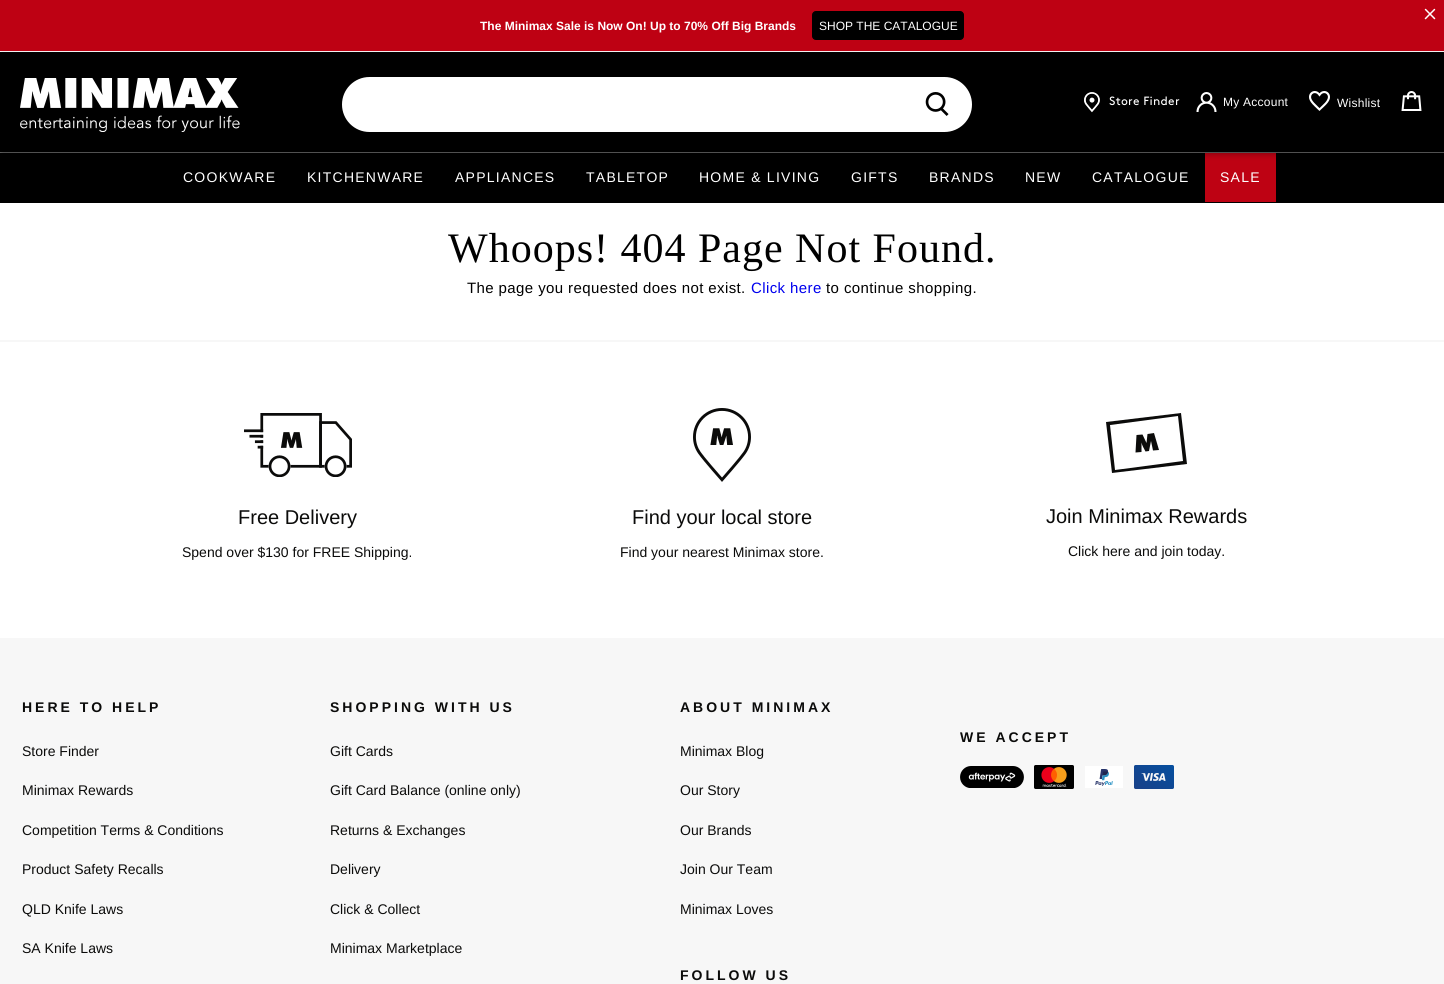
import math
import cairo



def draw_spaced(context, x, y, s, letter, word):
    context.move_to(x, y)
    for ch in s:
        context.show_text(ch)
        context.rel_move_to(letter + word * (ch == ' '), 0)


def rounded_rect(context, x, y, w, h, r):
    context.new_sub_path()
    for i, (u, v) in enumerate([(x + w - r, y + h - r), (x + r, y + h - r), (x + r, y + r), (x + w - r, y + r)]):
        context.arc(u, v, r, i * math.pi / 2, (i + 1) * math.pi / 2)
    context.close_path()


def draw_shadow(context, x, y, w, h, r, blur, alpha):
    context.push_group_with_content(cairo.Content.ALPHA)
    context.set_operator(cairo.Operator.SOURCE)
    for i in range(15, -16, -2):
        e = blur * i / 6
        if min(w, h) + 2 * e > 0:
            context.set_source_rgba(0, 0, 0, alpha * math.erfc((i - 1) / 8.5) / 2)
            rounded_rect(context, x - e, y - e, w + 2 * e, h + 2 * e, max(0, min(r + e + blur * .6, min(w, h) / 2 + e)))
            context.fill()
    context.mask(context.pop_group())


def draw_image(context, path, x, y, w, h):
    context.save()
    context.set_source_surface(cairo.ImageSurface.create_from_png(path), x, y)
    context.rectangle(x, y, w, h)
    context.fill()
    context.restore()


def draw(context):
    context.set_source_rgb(1, 1, 1)
    context.paint()
    context.set_source_rgb(0, 0, 0)
    context.rectangle(0, 153, 1444, 50)
    context.fill()
    context.set_source_rgb(102 / 255, 102 / 255, 102 / 255)
    context.rectangle(0, 152, 1444, 1)
    context.fill()
    context.set_source_rgb(190 / 255, 2 / 255, 19 / 255)
    context.rectangle(1205, 153, 71, 49)
    context.fill()
    context.set_source_rgb(0, 0, 0)
    draw_shadow(context, 2, 54, 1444, 100, 0, 3, 0.3)
    context.set_source_rgb(190 / 255, 1 / 255, 19 / 255)
    context.rectangle(0, 0, 1444, 51)
    context.fill()
    draw_image(context, "images/1.png", 1424, 8, 12, 12)
    context.set_source_rgb(0, 0, 0)
    rounded_rect(context, 812.5, 11.5, 151, 28, 3.5)
    context.fill_preserve()
    context.set_line_width(1)
    context.stroke()
    context.rectangle(0, 52, 1444, 100)
    context.fill()
    context.set_source_rgb(1, 1, 1)
    rounded_rect(context, 343.5, 78.5, 627, 52, 26)
    context.fill_preserve()
    context.set_line_width(3)
    context.stroke()
    draw_image(context, "images/2.png", 925, 92, 24, 24)
    draw_image(context, "images/3.png", 20, 78, 220, 54)
    draw_image(context, "images/4.png", 1084, 92, 16, 21)
    draw_image(context, "images/5.png", 1196, 92, 21, 20)
    draw_image(context, "images/6.png", 1309, 91, 21, 20)
    draw_image(context, "images/7.png", 1401, 91, 21, 20)
    context.set_source_rgb(247 / 255, 247 / 255, 247 / 255)
    context.rectangle(0, 340, 1444, 2)
    context.fill()
    draw_image(context, "images/8.png", 244, 413, 108, 64)
    draw_image(context, "images/9.png", 693, 408, 58, 74)
    context.set_source_rgb(11 / 255, 11 / 255, 10 / 255)
    context.new_path()
    context.move_to(1115, 470)
    context.line_to(1183, 461)
    context.line_to(1178, 416)
    context.line_to(1110, 425)
    context.close_path()
    context.move_to(1106, 422)
    context.line_to(1181, 413)
    context.line_to(1187, 464)
    context.line_to(1112, 473)
    context.close_path()
    context.fill()
    context.set_fill_rule(cairo.FillRule.EVEN_ODD)
    context.new_path()
    context.move_to(1135.5, 452.5)
    context.line_to(1141.5, 452)
    context.line_to(1141.5, 442.5)
    context.curve_to(1142, 445.5, 1144, 448.5, 1145.5, 451.5)
    context.line_to(1149, 451)
    context.line_to(1151, 441)
    context.line_to(1153, 450.5)
    context.line_to(1159, 450)
    context.line_to(1154, 433)
    context.line_to(1147.5, 434)
    context.line_to(1146.5, 443)
    context.line_to(1142.5, 434.5)
    context.line_to(1136.5, 435)
    context.close_path()
    context.fill()
    context.set_source_rgb(247 / 255, 247 / 255, 247 / 255)
    context.rectangle(0, 638, 1444, 346)
    context.fill()
    draw_image(context, "images/10.png", 960, 766, 64, 22)
    draw_image(context, "images/11.png", 1034, 765, 40, 24)
    draw_image(context, "images/12.png", 1085, 766, 38, 22)
    draw_image(context, "images/13.png", 1134, 765, 40, 24)
    context.select_font_face("Liberation Sans", cairo.FontSlant.NORMAL, cairo.FontWeight.BOLD)
    context.set_font_size(12)
    context.set_source_rgb(1, 1, 1)
    context.move_to(480, 30)
    context.show_text("The Minimax Sale is Now On! Up to 70% Off Big Brands")
    context.select_font_face("Liberation Sans")
    context.move_to(819, 30)
    context.show_text("SHOP THE CATALOGUE")
    context.select_font_face("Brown")
    draw_spaced(context, 1109, 105, "Store Finder", 0.25, 0)
    context.select_font_face("Liberation Sans")
    draw_spaced(context, 1223, 106, "My Account", 0.25, 0)
    draw_spaced(context, 1337, 107, "Wishlist", 0.25, 0)
    context.set_font_size(14)
    draw_spaced(context, 183, 182, "COOKWARE", 1.25, 0)
    draw_spaced(context, 307, 182, "KITCHENWARE", 1.25, 0)
    draw_spaced(context, 455, 182, "APPLIANCES", 1.25, 0)
    draw_spaced(context, 586, 182, "TABLETOP", 1.25, 0)
    draw_spaced(context, 699, 182, "HOME & LIVING", 1.25, 0)
    draw_spaced(context, 851, 182, "GIFTS", 1.25, 0)
    draw_spaced(context, 929, 182, "BRANDS", 1.25, 0)
    draw_spaced(context, 1025, 182, "NEW", 1.25, 0)
    draw_spaced(context, 1092, 182, "CATALOGUE", 1.25, 0)
    draw_spaced(context, 1220, 182, "SALE", 1.25, 0)
    context.select_font_face("Liberation Serif")
    context.set_font_size(42)
    context.set_source_rgb(0, 0, 0)
    draw_spaced(context, 448, 262, "Whoops! 404 Page Not Found.", 1, 0)
    context.select_font_face("Liberation Sans")
    context.set_font_size(15)
    draw_spaced(context, 467, 293, "The page you requested does not exist.", 0.4, 0)
    context.set_source_rgb(0, 0, 238 / 255)
    draw_spaced(context, 751, 293, "Click here", 0.4, 0)
    context.set_source_rgb(0, 0, 0)
    draw_spaced(context, 826, 293, "to continue shopping.", 0.4, 0)
    context.set_font_size(20)
    context.set_source_rgb(11 / 255, 11 / 255, 10 / 255)
    context.move_to(238, 524)
    context.show_text("Free Delivery")
    context.set_font_size(14)
    context.move_to(182, 557)
    context.show_text("Spend over $130 for FREE Shipping.")
    context.set_font_size(20)
    context.move_to(632, 524)
    context.show_text("Find your local store")
    context.set_font_size(14)
    context.move_to(620, 557)
    context.show_text("Find your nearest Minimax store.")
    context.set_font_size(20)
    context.move_to(1046, 523)
    context.show_text("Join Minimax Rewards")
    context.set_font_size(14)
    context.move_to(1068, 556)
    context.show_text("Click here and join today.")
    context.select_font_face("Liberation Sans", cairo.FontSlant.NORMAL, cairo.FontWeight.BOLD)
    draw_spaced(context, 22, 712, "HERE TO HELP", 3, 0)
    context.select_font_face("Liberation Sans")
    context.move_to(22, 756)
    context.show_text("Store Finder")
    context.move_to(22, 795)
    context.show_text("Minimax Rewards")
    context.move_to(22, 835)
    context.show_text("Competition Terms & Conditions")
    context.move_to(22, 874)
    context.show_text("Product Safety Recalls")
    context.move_to(22, 914)
    context.show_text("QLD Knife Laws")
    context.move_to(22, 953)
    context.show_text("SA Knife Laws")
    context.select_font_face("Liberation Sans", cairo.FontSlant.NORMAL, cairo.FontWeight.BOLD)
    draw_spaced(context, 330, 712, "SHOPPING WITH US", 3, 0)
    context.select_font_face("Liberation Sans")
    context.move_to(330, 756)
    context.show_text("Gift Cards")
    context.move_to(330, 795)
    context.show_text("Gift Card Balance (online only)")
    context.move_to(330, 835)
    context.show_text("Returns & Exchanges")
    context.move_to(330, 874)
    context.show_text("Delivery")
    context.move_to(330, 914)
    context.show_text("Click & Collect")
    context.move_to(330, 953)
    context.show_text("Minimax Marketplace")
    context.select_font_face("Liberation Sans", cairo.FontSlant.NORMAL, cairo.FontWeight.BOLD)
    draw_spaced(context, 680, 712, "ABOUT MINIMAX", 3, 0)
    context.select_font_face("Liberation Sans")
    context.move_to(680, 756)
    context.show_text("Minimax Blog")
    context.move_to(680, 795)
    context.show_text("Our Story")
    context.move_to(680, 835)
    context.show_text("Our Brands")
    context.move_to(680, 874)
    context.show_text("Join Our Team")
    context.move_to(680, 914)
    context.show_text("Minimax Loves")
    context.select_font_face("Liberation Sans", cairo.FontSlant.NORMAL, cairo.FontWeight.BOLD)
    draw_spaced(context, 680, 980, "FOLLOW US", 3, 0)
    draw_spaced(context, 960, 742, "WE ACCEPT", 3, 0)


surface = cairo.ImageSurface(cairo.Format.RGB24, 1444, 984)
context = cairo.Context(surface)
options = cairo.FontOptions()
options.set_hint_metrics(cairo.HintMetrics.OFF)
options.set_hint_style(cairo.HintStyle.NONE)
context.set_font_options(options)
context.set_miter_limit(4)
draw(context)
surface.write_to_png("out.png")
